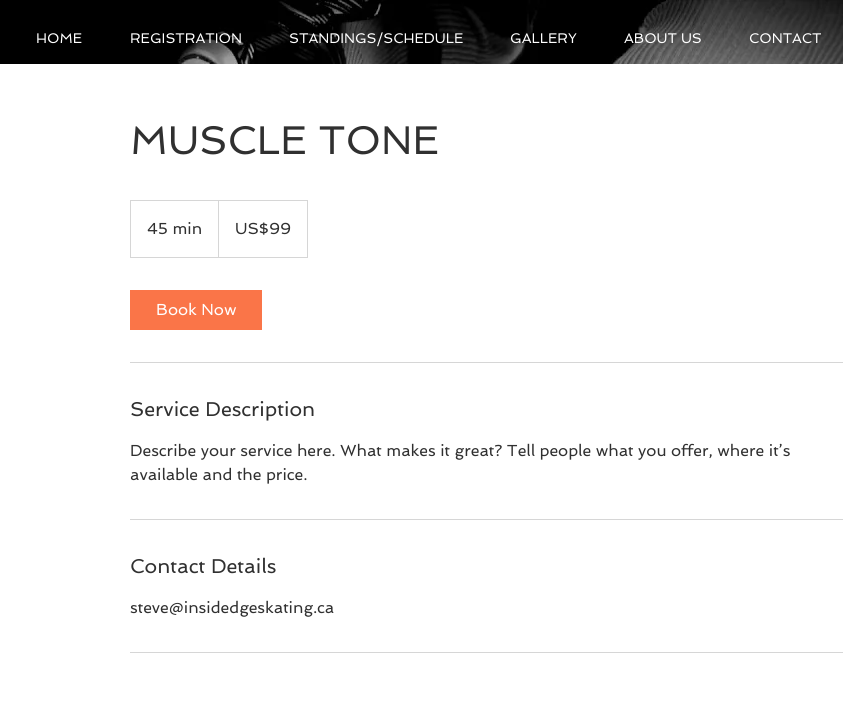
import math
import cairo



def draw_image(context, path, x, y, w, h):
    context.save()
    context.set_source_surface(cairo.ImageSurface.create_from_png(path), x, y)
    context.rectangle(x, y, w, h)
    context.fill()
    context.restore()


def draw(context):
    context.set_source_rgb(1, 1, 1)
    context.paint()
    draw_image(context, "images/1.png", 0, 0, 843, 64)
    context.rectangle(130.5, 200.5, 177, 57)
    context.set_source_rgb(214 / 255, 214 / 255, 214 / 255)
    context.set_line_width(1)
    context.stroke()
    context.new_path()
    context.move_to(218, 257)
    context.line_to(218, 200)
    context.line_to(219, 201)
    context.line_to(219, 257)
    context.close_path()
    context.fill()
    context.set_source_rgb(250 / 255, 117 / 255, 72 / 255)
    context.rectangle(130, 290, 132, 40)
    context.fill()
    context.set_source_rgb(214 / 255, 214 / 255, 214 / 255)
    context.rectangle(130, 362, 713, 1)
    context.fill()
    context.rectangle(130, 519, 713, 1)
    context.fill()
    context.rectangle(130, 652, 713, 1)
    context.fill()
    context.select_font_face("Spinnaker")
    context.set_font_size(14)
    context.set_source_rgb(1, 1, 1)
    context.move_to(36, 43)
    context.show_text("HOME")
    context.move_to(130, 43)
    context.show_text("REGISTRATION")
    context.move_to(289, 43)
    context.show_text("STANDINGS/SCHEDULE")
    context.move_to(510, 43)
    context.show_text("GALLERY")
    context.move_to(624, 43)
    context.show_text("ABOUT US")
    context.move_to(749, 43)
    context.show_text("CONTACT")
    context.set_font_size(40)
    context.set_source_rgb(48 / 255, 48 / 255, 48 / 255)
    context.move_to(130, 154)
    context.show_text("MUSCLE TONE")
    context.set_font_size(16)
    context.move_to(147, 234)
    context.show_text("45 min")
    context.move_to(235, 234)
    context.show_text("US$99")
    context.set_source_rgb(1, 1, 1)
    context.move_to(156, 315)
    context.show_text("Book Now")
    context.set_font_size(20)
    context.set_source_rgb(48 / 255, 48 / 255, 48 / 255)
    context.move_to(130, 416)
    context.show_text("Service Description")
    context.set_font_size(16)
    context.move_to(130, 456)
    context.show_text("Describe your service here. What makes it great? Tell people what you offer, where it’s")
    context.move_to(130, 480)
    context.show_text("available and the price.")
    context.set_font_size(20)
    context.move_to(130, 573)
    context.show_text("Contact Details")
    context.set_font_size(16)
    context.move_to(130, 613)
    context.show_text("steve@insidedgeskating.ca")


surface = cairo.ImageSurface(cairo.Format.RGB24, 843, 711)
context = cairo.Context(surface)
options = cairo.FontOptions()
options.set_hint_metrics(cairo.HintMetrics.OFF)
options.set_hint_style(cairo.HintStyle.NONE)
context.set_font_options(options)
context.set_miter_limit(4)
draw(context)
surface.write_to_png("out.png")
